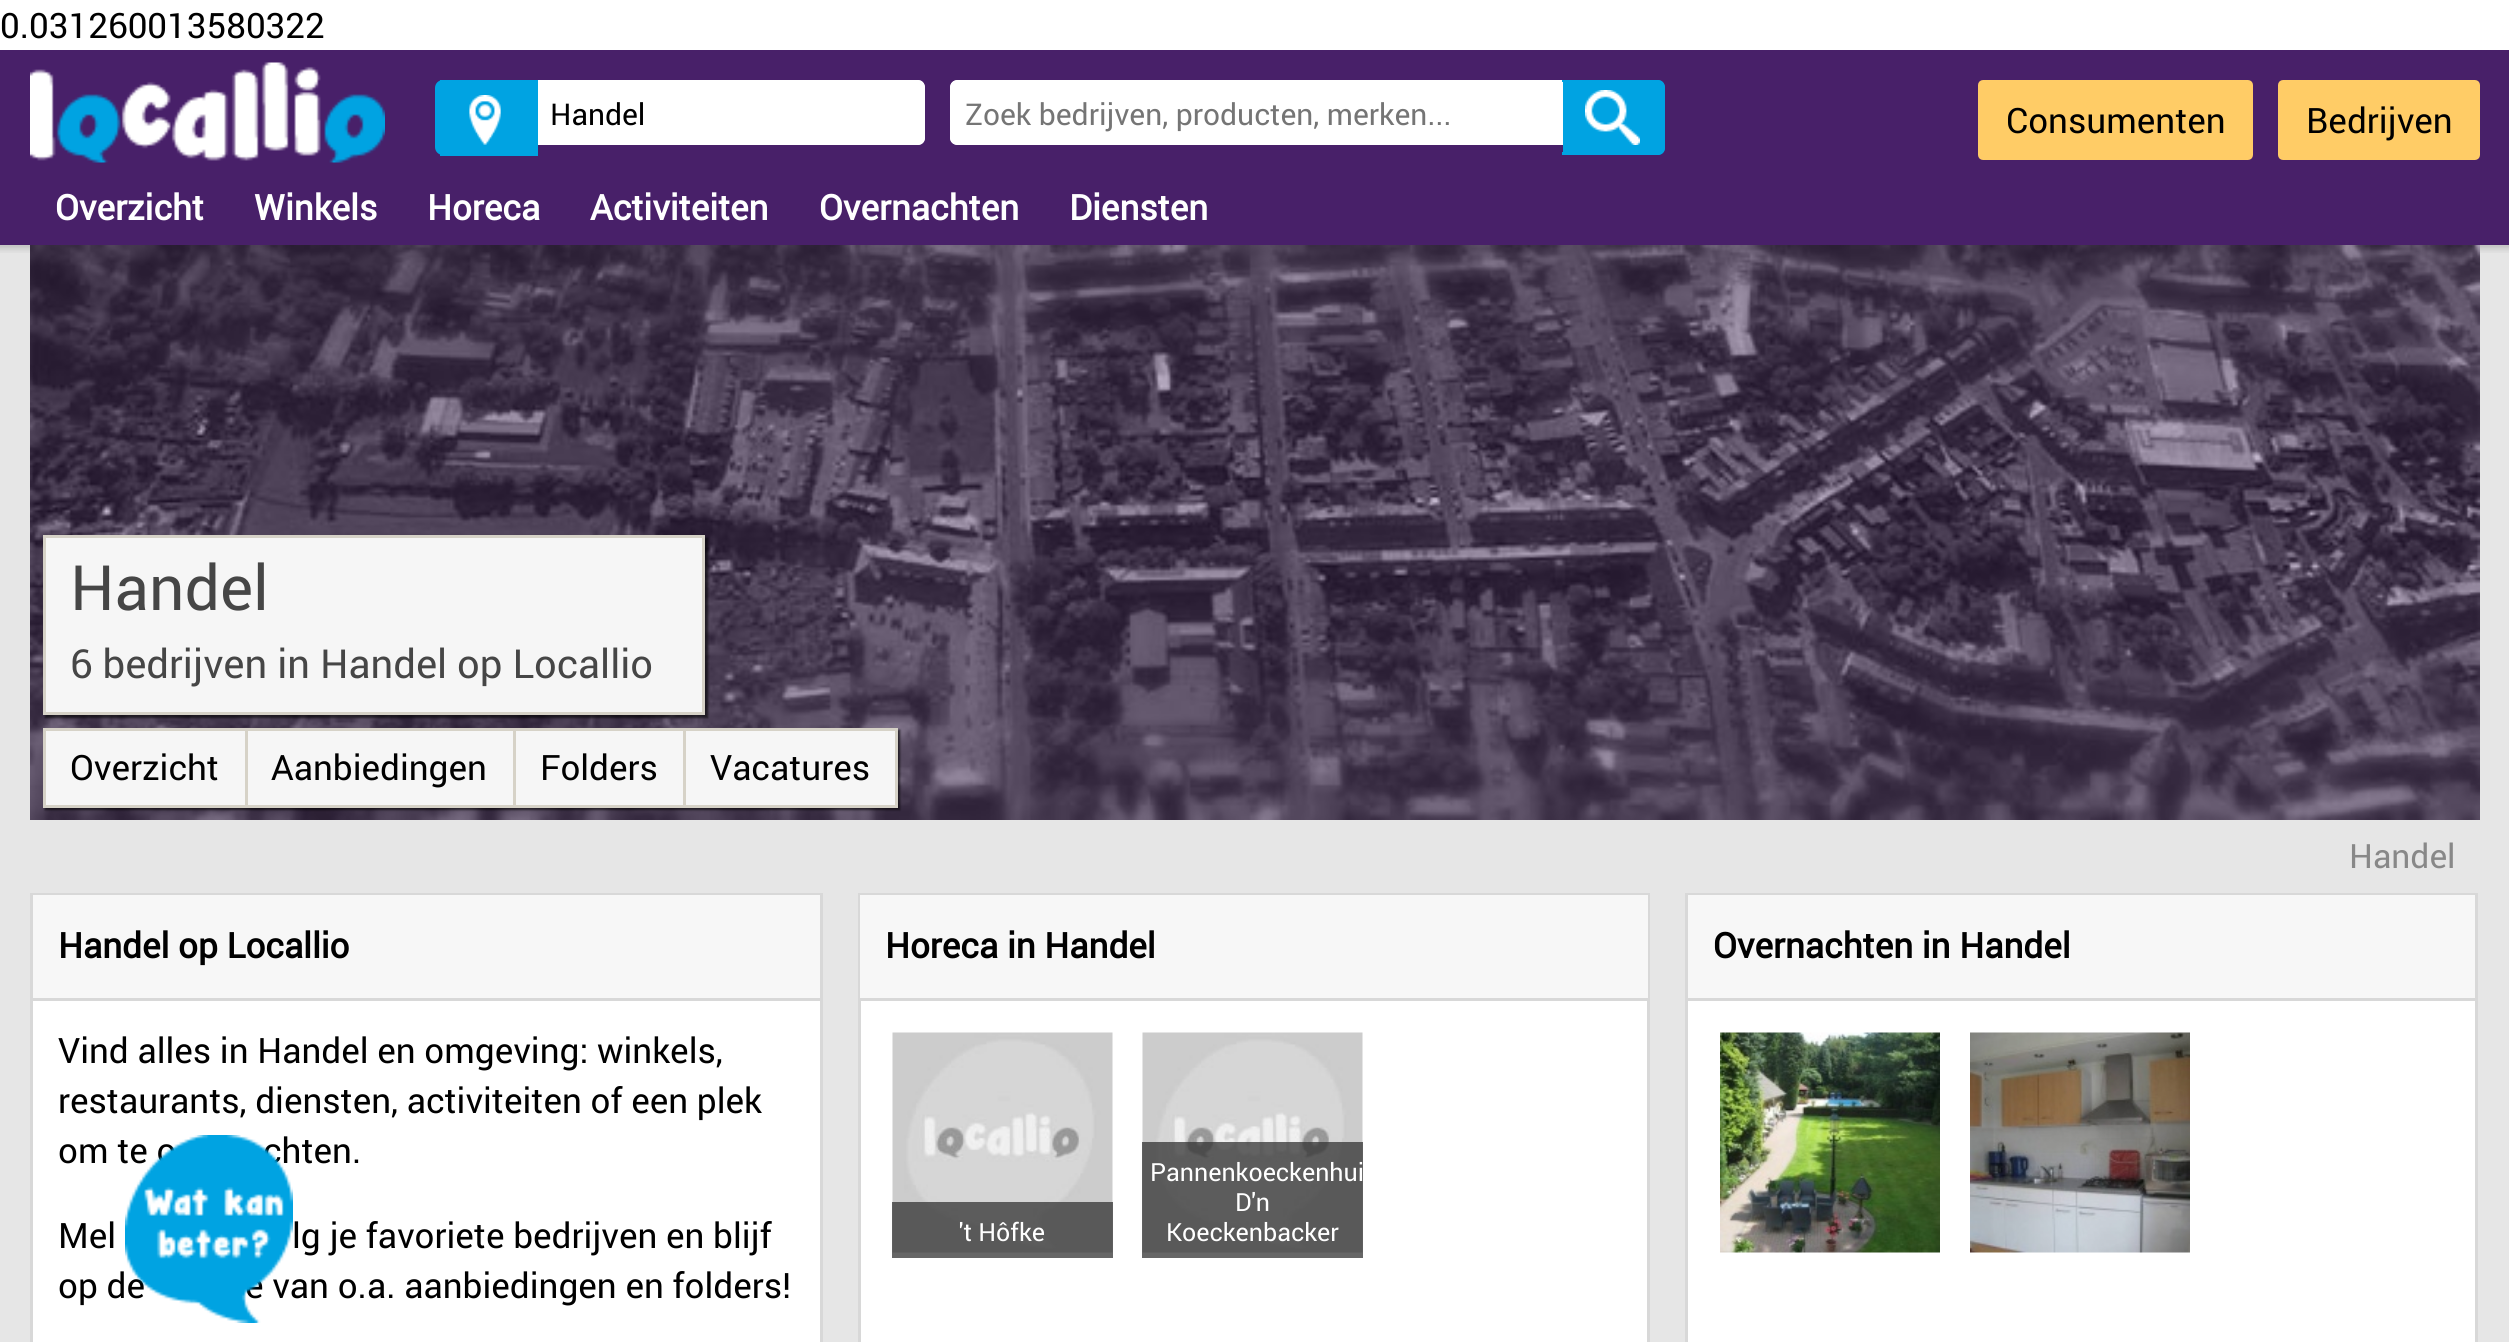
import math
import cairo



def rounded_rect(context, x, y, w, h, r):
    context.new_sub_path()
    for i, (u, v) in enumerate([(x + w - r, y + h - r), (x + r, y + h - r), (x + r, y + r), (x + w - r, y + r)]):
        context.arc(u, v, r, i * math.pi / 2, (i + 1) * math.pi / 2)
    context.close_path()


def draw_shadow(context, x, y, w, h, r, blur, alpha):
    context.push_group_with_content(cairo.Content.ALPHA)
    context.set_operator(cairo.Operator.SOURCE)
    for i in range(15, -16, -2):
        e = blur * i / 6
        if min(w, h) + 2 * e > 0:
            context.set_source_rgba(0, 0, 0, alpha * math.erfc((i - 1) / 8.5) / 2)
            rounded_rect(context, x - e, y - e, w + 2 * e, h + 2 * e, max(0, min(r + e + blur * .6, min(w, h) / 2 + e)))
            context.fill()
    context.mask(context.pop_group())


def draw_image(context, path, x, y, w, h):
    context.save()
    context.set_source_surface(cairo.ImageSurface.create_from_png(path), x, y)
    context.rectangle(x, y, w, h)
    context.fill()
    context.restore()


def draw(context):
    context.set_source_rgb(1, 1, 1)
    context.paint()
    context.set_source_rgb(230 / 255, 230 / 255, 230 / 255)
    context.rectangle(0, 245, 2509, 1097)
    context.fill()
    context.set_source_rgb(72 / 255, 32 / 255, 105 / 255)
    context.rectangle(0, 50, 2509, 195)
    context.fill()
    draw_image(context, "images/1.png", 30, 62, 355, 101)
    context.set_source_rgb(0, 163 / 255, 226 / 255)
    context.new_path()
    context.move_to(443, 80)
    context.line_to(538, 80)
    context.line_to(538, 155)
    context.line_to(443, 155)
    context.curve_to(438.5, 155, 435, 151.5, 435, 147)
    context.line_to(435, 88)
    context.curve_to(435, 83.5, 438.5, 80, 443, 80)
    context.close_path()
    context.fill()
    context.rectangle(440, 80, 3, 1)
    context.fill()
    context.rectangle(440, 154, 98, 2)
    context.fill()
    draw_image(context, "images/2.png", 469, 95, 32, 50)
    context.set_source_rgb(1, 1, 1)
    context.new_path()
    context.move_to(538, 80)
    context.line_to(917, 80)
    context.curve_to(921.5, 80, 925, 83.5, 925, 88)
    context.line_to(925, 137)
    context.curve_to(925, 141.5, 921.5, 145, 917, 145)
    context.line_to(538, 145)
    context.close_path()
    context.fill()
    context.set_fill_rule(cairo.FillRule.EVEN_ODD)
    context.new_path()
    context.move_to(538, 80)
    context.line_to(918, 80)
    context.curve_to(922, 80, 925, 83, 925, 88)
    context.line_to(925, 138)
    context.curve_to(925, 142, 922, 145, 918, 145)
    context.line_to(538, 145)
    context.close_path()
    context.move_to(538, 82)
    context.line_to(918, 82)
    context.curve_to(920, 82, 922, 85, 922, 88)
    context.line_to(922, 138)
    context.curve_to(922, 140, 920, 142, 918, 142)
    context.line_to(538, 142)
    context.close_path()
    context.fill()
    context.new_path()
    context.move_to(958, 80)
    context.line_to(1563, 80)
    context.line_to(1563, 145)
    context.line_to(958, 145)
    context.curve_to(953.5, 145, 950, 141.5, 950, 137)
    context.line_to(950, 88)
    context.curve_to(950, 83.5, 953.5, 80, 958, 80)
    context.close_path()
    context.fill()
    context.new_path()
    context.move_to(958, 80)
    context.line_to(1562, 80)
    context.line_to(1562, 145)
    context.line_to(958, 145)
    context.curve_to(953, 145, 950, 142, 950, 138)
    context.line_to(950, 88)
    context.curve_to(950, 83, 953, 80, 958, 80)
    context.close_path()
    context.move_to(958, 82)
    context.line_to(1562, 82)
    context.line_to(1562, 142)
    context.line_to(958, 142)
    context.curve_to(955, 142, 952, 140, 952, 138)
    context.line_to(952, 88)
    context.curve_to(952, 85, 955, 82, 958, 82)
    context.close_path()
    context.fill()
    context.set_source_rgb(0, 163 / 255, 226 / 255)
    context.new_path()
    context.move_to(1563, 80)
    context.line_to(1657, 80)
    context.curve_to(1661.5, 80, 1665, 83.5, 1665, 88)
    context.line_to(1665, 147)
    context.curve_to(1665, 151.5, 1661.5, 155, 1657, 155)
    context.line_to(1563, 155)
    context.close_path()
    context.fill()
    context.new_path()
    context.move_to(1562, 80)
    context.line_to(1658, 80)
    context.curve_to(1662, 80, 1665, 83, 1665, 88)
    context.line_to(1665, 148)
    context.curve_to(1665, 152, 1662, 155, 1658, 155)
    context.line_to(1562, 155)
    context.close_path()
    context.move_to(1562, 82)
    context.line_to(1658, 82)
    context.curve_to(1660, 82, 1662, 85, 1662, 88)
    context.line_to(1662, 148)
    context.curve_to(1662, 150, 1660, 152, 1658, 152)
    context.line_to(1562, 152)
    context.close_path()
    context.fill()
    draw_image(context, "images/3.png", 1585, 90, 55, 55)
    context.set_source_rgb(1, 204 / 255, 102 / 255)
    rounded_rect(context, 1979.5, 81.5, 272, 77, 3.5)
    context.fill_preserve()
    context.set_line_width(3)
    context.stroke()
    rounded_rect(context, 2279.5, 81.5, 199, 77, 3.5)
    context.fill_preserve()
    context.stroke()
    draw_image(context, "images/4.png", 0, 245, 2509, 8)
    draw_image(context, "images/5.png", 30, 245, 2450, 575)
    context.set_source_rgb(0, 0, 0)
    draw_shadow(context, 45, 538, 663, 180, 0, 1, 0.6)
    context.set_source_rgb(246 / 255, 246 / 255, 246 / 255)
    context.rectangle(44.5, 536.5, 659, 177)
    context.fill_preserve()
    context.set_source_rgb(214 / 255, 210 / 255, 199 / 255)
    context.stroke()
    context.set_source_rgb(0, 0, 0)
    draw_shadow(context, 45, 730, 855, 80, 0, 1, 0.6)
    context.set_source_rgb(246 / 255, 246 / 255, 246 / 255)
    context.rectangle(44.5, 729.5, 852, 77)
    context.fill_preserve()
    context.set_source_rgb(214 / 255, 210 / 255, 199 / 255)
    context.stroke()
    context.rectangle(245, 730, 3, 75)
    context.fill()
    context.rectangle(513, 730, 3, 75)
    context.fill()
    context.rectangle(683, 730, 3, 75)
    context.fill()
    context.set_source_rgb(1, 1, 1)
    context.rectangle(33, 1001, 787, 341)
    context.fill()
    context.rectangle(31.5, 894.5, 790, 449)
    context.set_source_rgb(216 / 255, 216 / 255, 216 / 255)
    context.stroke()
    context.set_source_rgb(247 / 255, 247 / 255, 247 / 255)
    context.rectangle(33, 895, 787, 103)
    context.fill()
    context.set_source_rgb(216 / 255, 216 / 255, 216 / 255)
    context.rectangle(33, 998, 787, 3)
    context.fill()
    context.set_source_rgb(1, 1, 1)
    context.rectangle(861, 1001, 786, 341)
    context.fill()
    context.rectangle(859.5, 894.5, 789, 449)
    context.set_source_rgb(216 / 255, 216 / 255, 216 / 255)
    context.stroke()
    context.set_source_rgb(247 / 255, 247 / 255, 247 / 255)
    context.rectangle(860, 895, 788, 103)
    context.fill()
    context.set_source_rgb(216 / 255, 216 / 255, 216 / 255)
    context.rectangle(860, 998, 788, 3)
    context.fill()
    draw_image(context, "images/6.png", 892, 1032, 221, 221)
    context.set_source_rgba(51 / 255, 51 / 255, 51 / 255, 0.75)
    context.rectangle(892, 1202, 221, 56)
    context.fill()
    draw_image(context, "images/6.png", 1142, 1032, 221, 221)
    context.rectangle(1142, 1142, 221, 116)
    context.fill()
    context.set_source_rgb(1, 1, 1)
    context.rectangle(1688, 1001, 787, 341)
    context.fill()
    context.rectangle(1686.5, 894.5, 790, 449)
    context.set_source_rgb(216 / 255, 216 / 255, 216 / 255)
    context.stroke()
    context.set_source_rgb(247 / 255, 247 / 255, 247 / 255)
    context.rectangle(1688, 895, 787, 103)
    context.fill()
    context.set_source_rgb(216 / 255, 216 / 255, 216 / 255)
    context.rectangle(1688, 998, 787, 3)
    context.fill()
    draw_image(context, "images/7.png", 1720, 1032, 220, 221)
    draw_image(context, "images/8.png", 1970, 1032, 220, 221)
    context.select_font_face("roboto")
    context.set_font_size(35)
    context.set_source_rgb(0, 0, 0)
    context.move_to(0, 38)
    context.show_text("0.031260013580322")
    context.set_font_size(30)
    context.move_to(550, 125)
    context.show_text("Handel")
    context.set_source_rgb(117 / 255, 117 / 255, 117 / 255)
    context.move_to(965, 125)
    context.show_text("Zoek bedrijven, producten, merken...")
    context.set_font_size(35)
    context.set_source_rgb(0, 0, 0)
    context.move_to(2006, 133)
    context.show_text("Consumenten")
    context.move_to(2306, 133)
    context.show_text("Bedrijven")
    context.select_font_face("roboto", cairo.FontSlant.NORMAL, cairo.FontWeight.BOLD)
    context.set_source_rgb(1, 1, 1)
    context.move_to(55, 220)
    context.show_text("Overzicht")
    context.move_to(254, 220)
    context.show_text("Winkels")
    context.move_to(427, 220)
    context.show_text("Horeca")
    context.move_to(590, 220)
    context.show_text("Activiteiten")
    context.move_to(819, 220)
    context.show_text("Overnachten")
    context.move_to(1069, 220)
    context.show_text("Diensten")
    context.select_font_face("roboto")
    context.set_font_size(62.5)
    context.set_source_rgb(70 / 255, 70 / 255, 70 / 255)
    context.move_to(70, 610)
    context.show_text("Handel")
    context.set_font_size(40)
    context.move_to(70, 678)
    context.show_text("6 bedrijven in Handel op Locallio")
    context.set_font_size(35)
    context.set_source_rgb(0, 0, 0)
    context.move_to(70, 780)
    context.show_text("Overzicht")
    context.move_to(271, 780)
    context.show_text("Aanbiedingen")
    context.move_to(540, 780)
    context.show_text("Folders")
    context.move_to(710, 780)
    context.show_text("Vacatures")
    context.set_font_size(33.5)
    context.set_source_rgb(136 / 255, 136 / 255, 136 / 255)
    context.move_to(2349, 868)
    context.show_text("Handel")
    context.select_font_face("roboto", cairo.FontSlant.NORMAL, cairo.FontWeight.BOLD)
    context.set_font_size(35)
    context.set_source_rgb(0, 0, 0)
    context.move_to(58, 958)
    context.show_text("Handel op Locallio")
    context.select_font_face("roboto")
    context.move_to(58, 1063)
    context.show_text("Vind alles in Handel en omgeving: winkels,")
    context.move_to(58, 1113)
    context.show_text("restaurants, diensten, activiteiten of een plek")
    context.move_to(58, 1163)
    context.show_text("om te o")
    context.move_to(263, 1163)
    context.show_text("chten.")
    context.move_to(58, 1248)
    context.show_text("Mel")
    context.move_to(292, 1248)
    context.show_text("lg je favoriete bedrijven en blijf")
    context.move_to(58, 1298)
    context.show_text("op de")
    context.move_to(245, 1298)
    context.show_text("e van o.a. aanbiedingen en folders!")
    context.select_font_face("roboto", cairo.FontSlant.NORMAL, cairo.FontWeight.BOLD)
    context.move_to(885, 958)
    context.show_text("Horeca in Handel")
    context.select_font_face("roboto")
    context.set_font_size(25)
    context.set_source_rgb(1, 1, 1)
    context.move_to(959, 1241)
    context.show_text("'t Hôfke")
    context.move_to(1150, 1181)
    context.show_text("Pannenkoeckenhui")
    context.move_to(1235, 1211)
    context.show_text("D'n")
    context.move_to(1166, 1241)
    context.show_text("Koeckenbacker")
    context.select_font_face("roboto", cairo.FontSlant.NORMAL, cairo.FontWeight.BOLD)
    context.set_font_size(35)
    context.set_source_rgb(0, 0, 0)
    context.move_to(1713, 958)
    context.show_text("Overnachten in Handel")
    draw_image(context, "images/9.png", 125, 1135, 168, 188)


surface = cairo.ImageSurface(cairo.Format.RGB24, 2509, 1342)
context = cairo.Context(surface)
options = cairo.FontOptions()
options.set_hint_metrics(cairo.HintMetrics.OFF)
options.set_hint_style(cairo.HintStyle.NONE)
context.set_font_options(options)
context.set_miter_limit(4)
draw(context)
surface.write_to_png("out.png")
